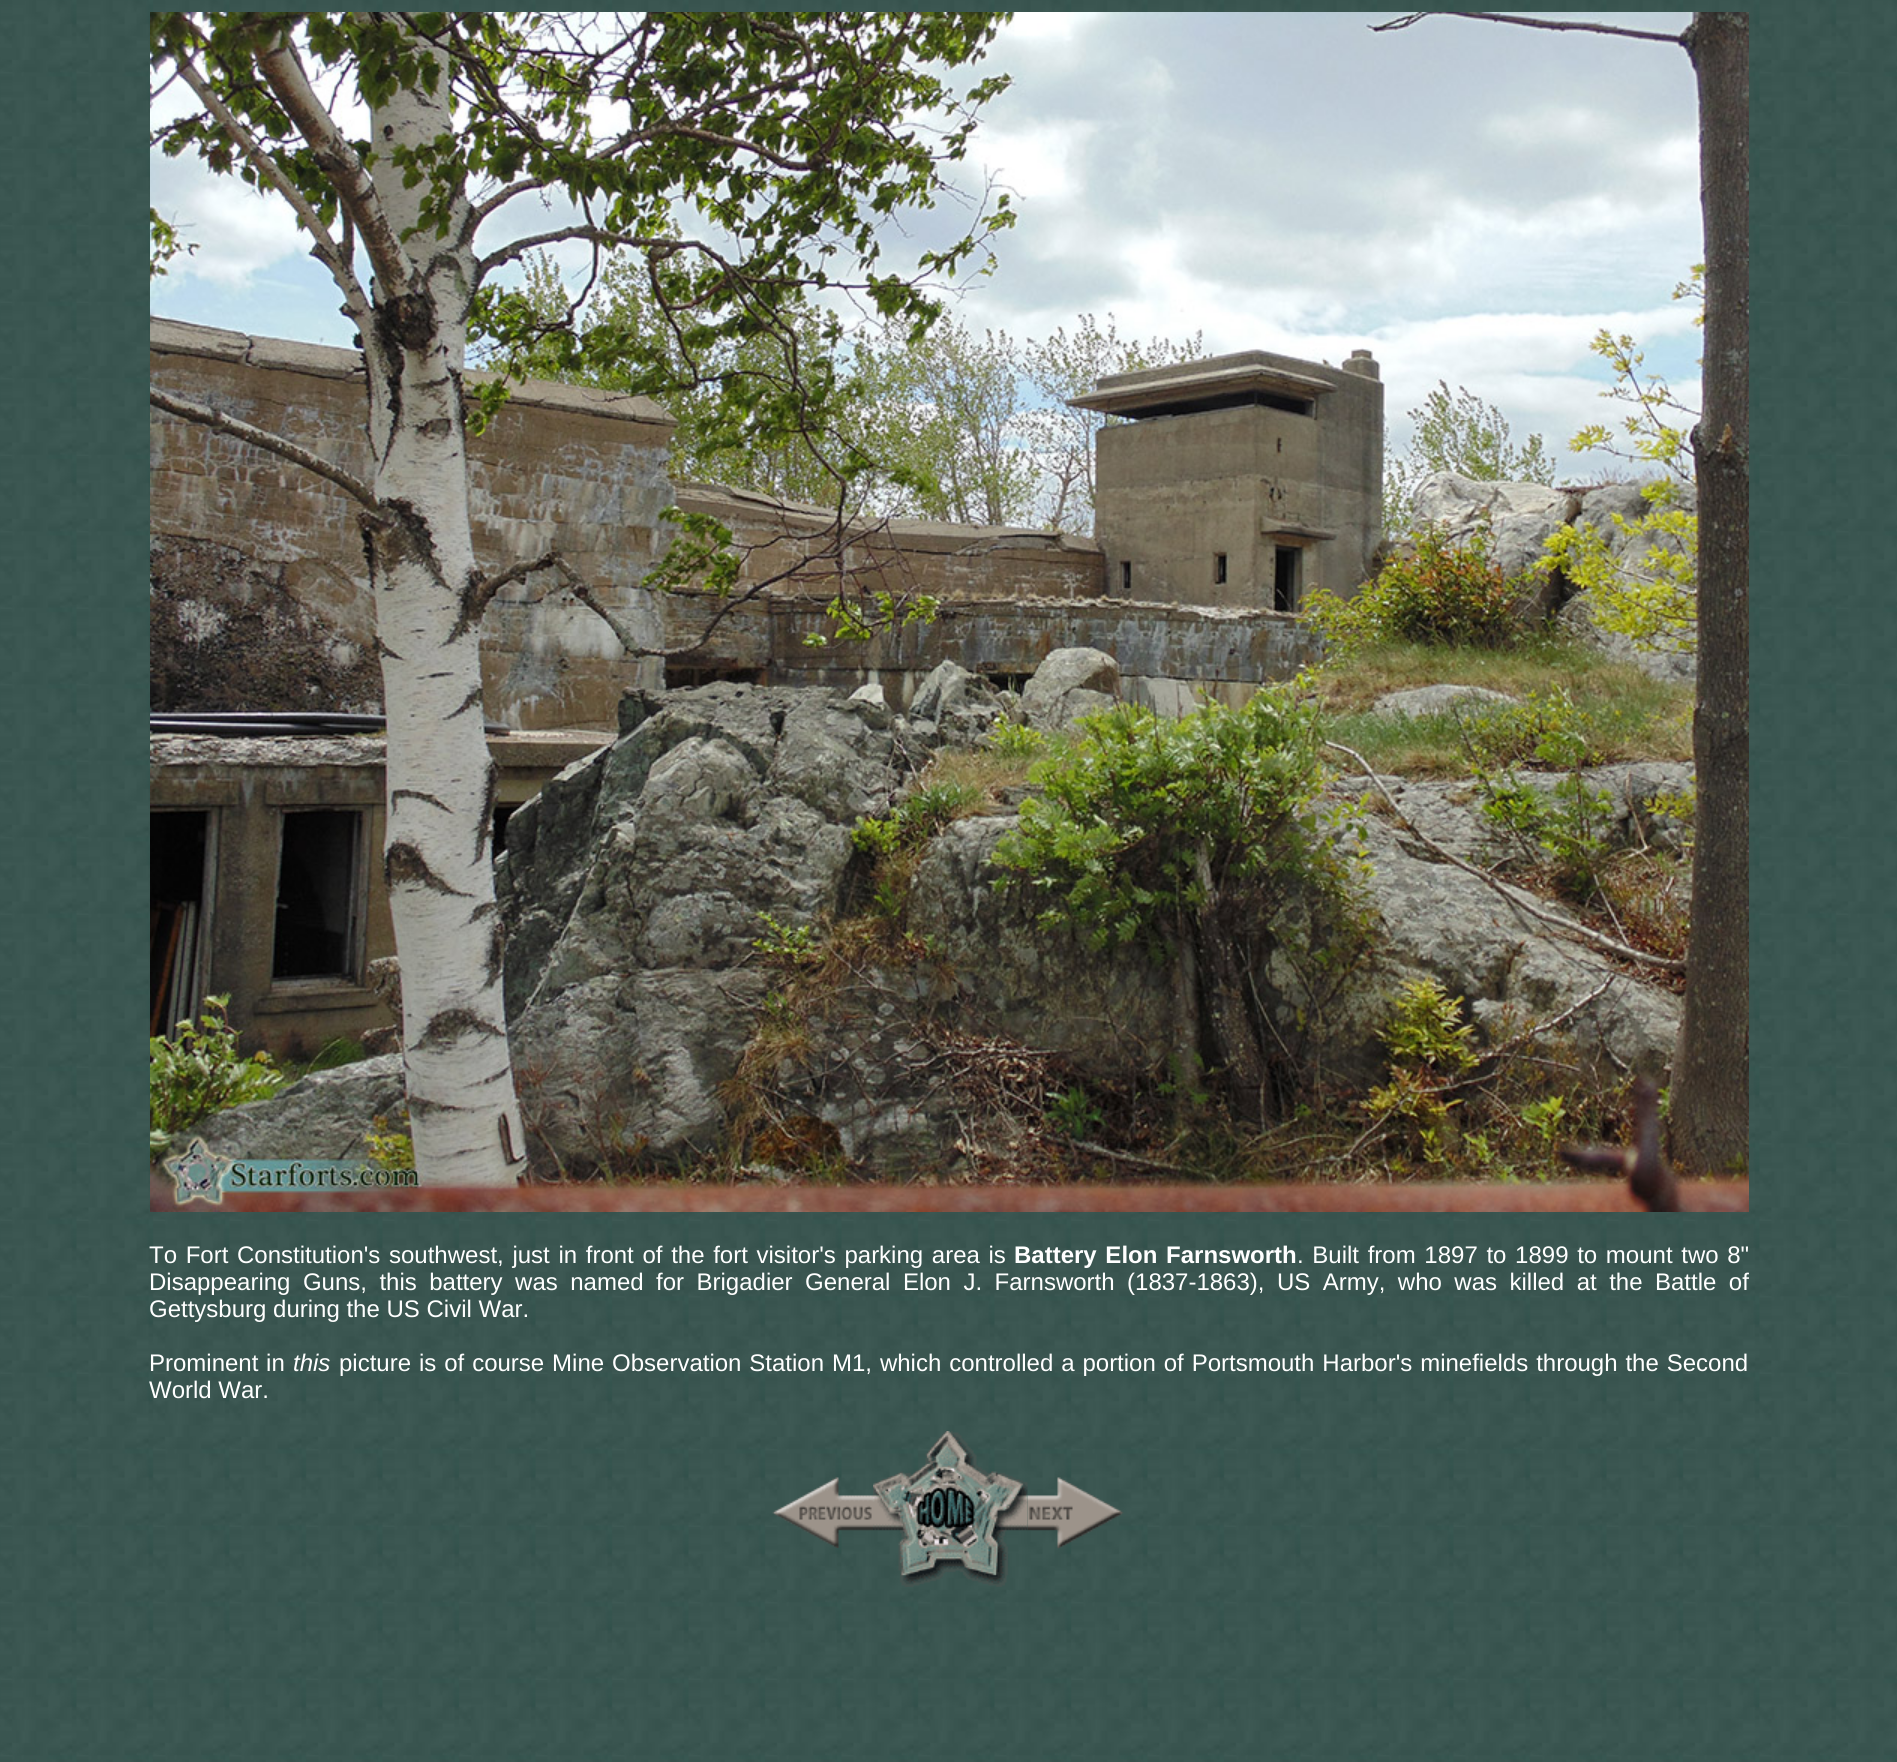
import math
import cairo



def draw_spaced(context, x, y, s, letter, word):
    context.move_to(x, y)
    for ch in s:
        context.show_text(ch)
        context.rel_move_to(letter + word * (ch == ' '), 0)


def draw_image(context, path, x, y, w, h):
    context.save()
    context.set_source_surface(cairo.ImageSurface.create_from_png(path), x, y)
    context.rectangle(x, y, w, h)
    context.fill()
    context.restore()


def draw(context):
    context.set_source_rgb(1, 1, 1)
    context.paint()
    draw_image(context, "images/1.png", 0, 0, 1897, 1762)
    draw_image(context, "images/2.png", 150, 12, 1599, 1200)
    draw_image(context, "images/3.png", 772, 1477, 101, 71)
    draw_image(context, "images/4.png", 873, 1431, 155, 156)
    draw_image(context, "images/5.png", 1027, 1477, 97, 72)
    context.select_font_face("Liberation Sans")
    context.set_font_size(24)
    context.set_source_rgb(1, 1, 1)
    draw_spaced(context, 149, 1263, "To Fort Constitution's southwest, just in front of the fort visitor's parking area is", 0, 2)
    context.select_font_face("Liberation Sans", cairo.FontSlant.NORMAL, cairo.FontWeight.BOLD)
    draw_spaced(context, 1014, 1263, "Battery Elon Farnsworth", 0, 2)
    context.select_font_face("Liberation Sans")
    draw_spaced(context, 1297, 1263, ". Built from 1897 to 1899 to mount two 8\"", 0, 2)
    draw_spaced(context, 149, 1290, "Disappearing Guns, this battery was named for Brigadier General Elon J. Farnsworth (1837-1863), US Army, who was killed at the Battle of", 0, 5.8)
    context.move_to(149, 1317)
    context.show_text("Gettysburg during the US Civil War.")
    draw_spaced(context, 149, 1371, "Prominent in", 0, 1)
    context.select_font_face("Liberation Sans", cairo.FontSlant.ITALIC)
    context.move_to(293, 1371)
    context.show_text("this")
    context.select_font_face("Liberation Sans")
    draw_spaced(context, 339, 1371, "picture is of course Mine Observation Station M1, which controlled a portion of Portsmouth Harbor's minefields through the Second", 0, 1.25)
    context.move_to(149, 1398)
    context.show_text("World War.")


surface = cairo.ImageSurface(cairo.Format.RGB24, 1897, 1762)
context = cairo.Context(surface)
options = cairo.FontOptions()
options.set_hint_metrics(cairo.HintMetrics.OFF)
options.set_hint_style(cairo.HintStyle.NONE)
context.set_font_options(options)
context.set_miter_limit(4)
draw(context)
surface.write_to_png("out.png")
